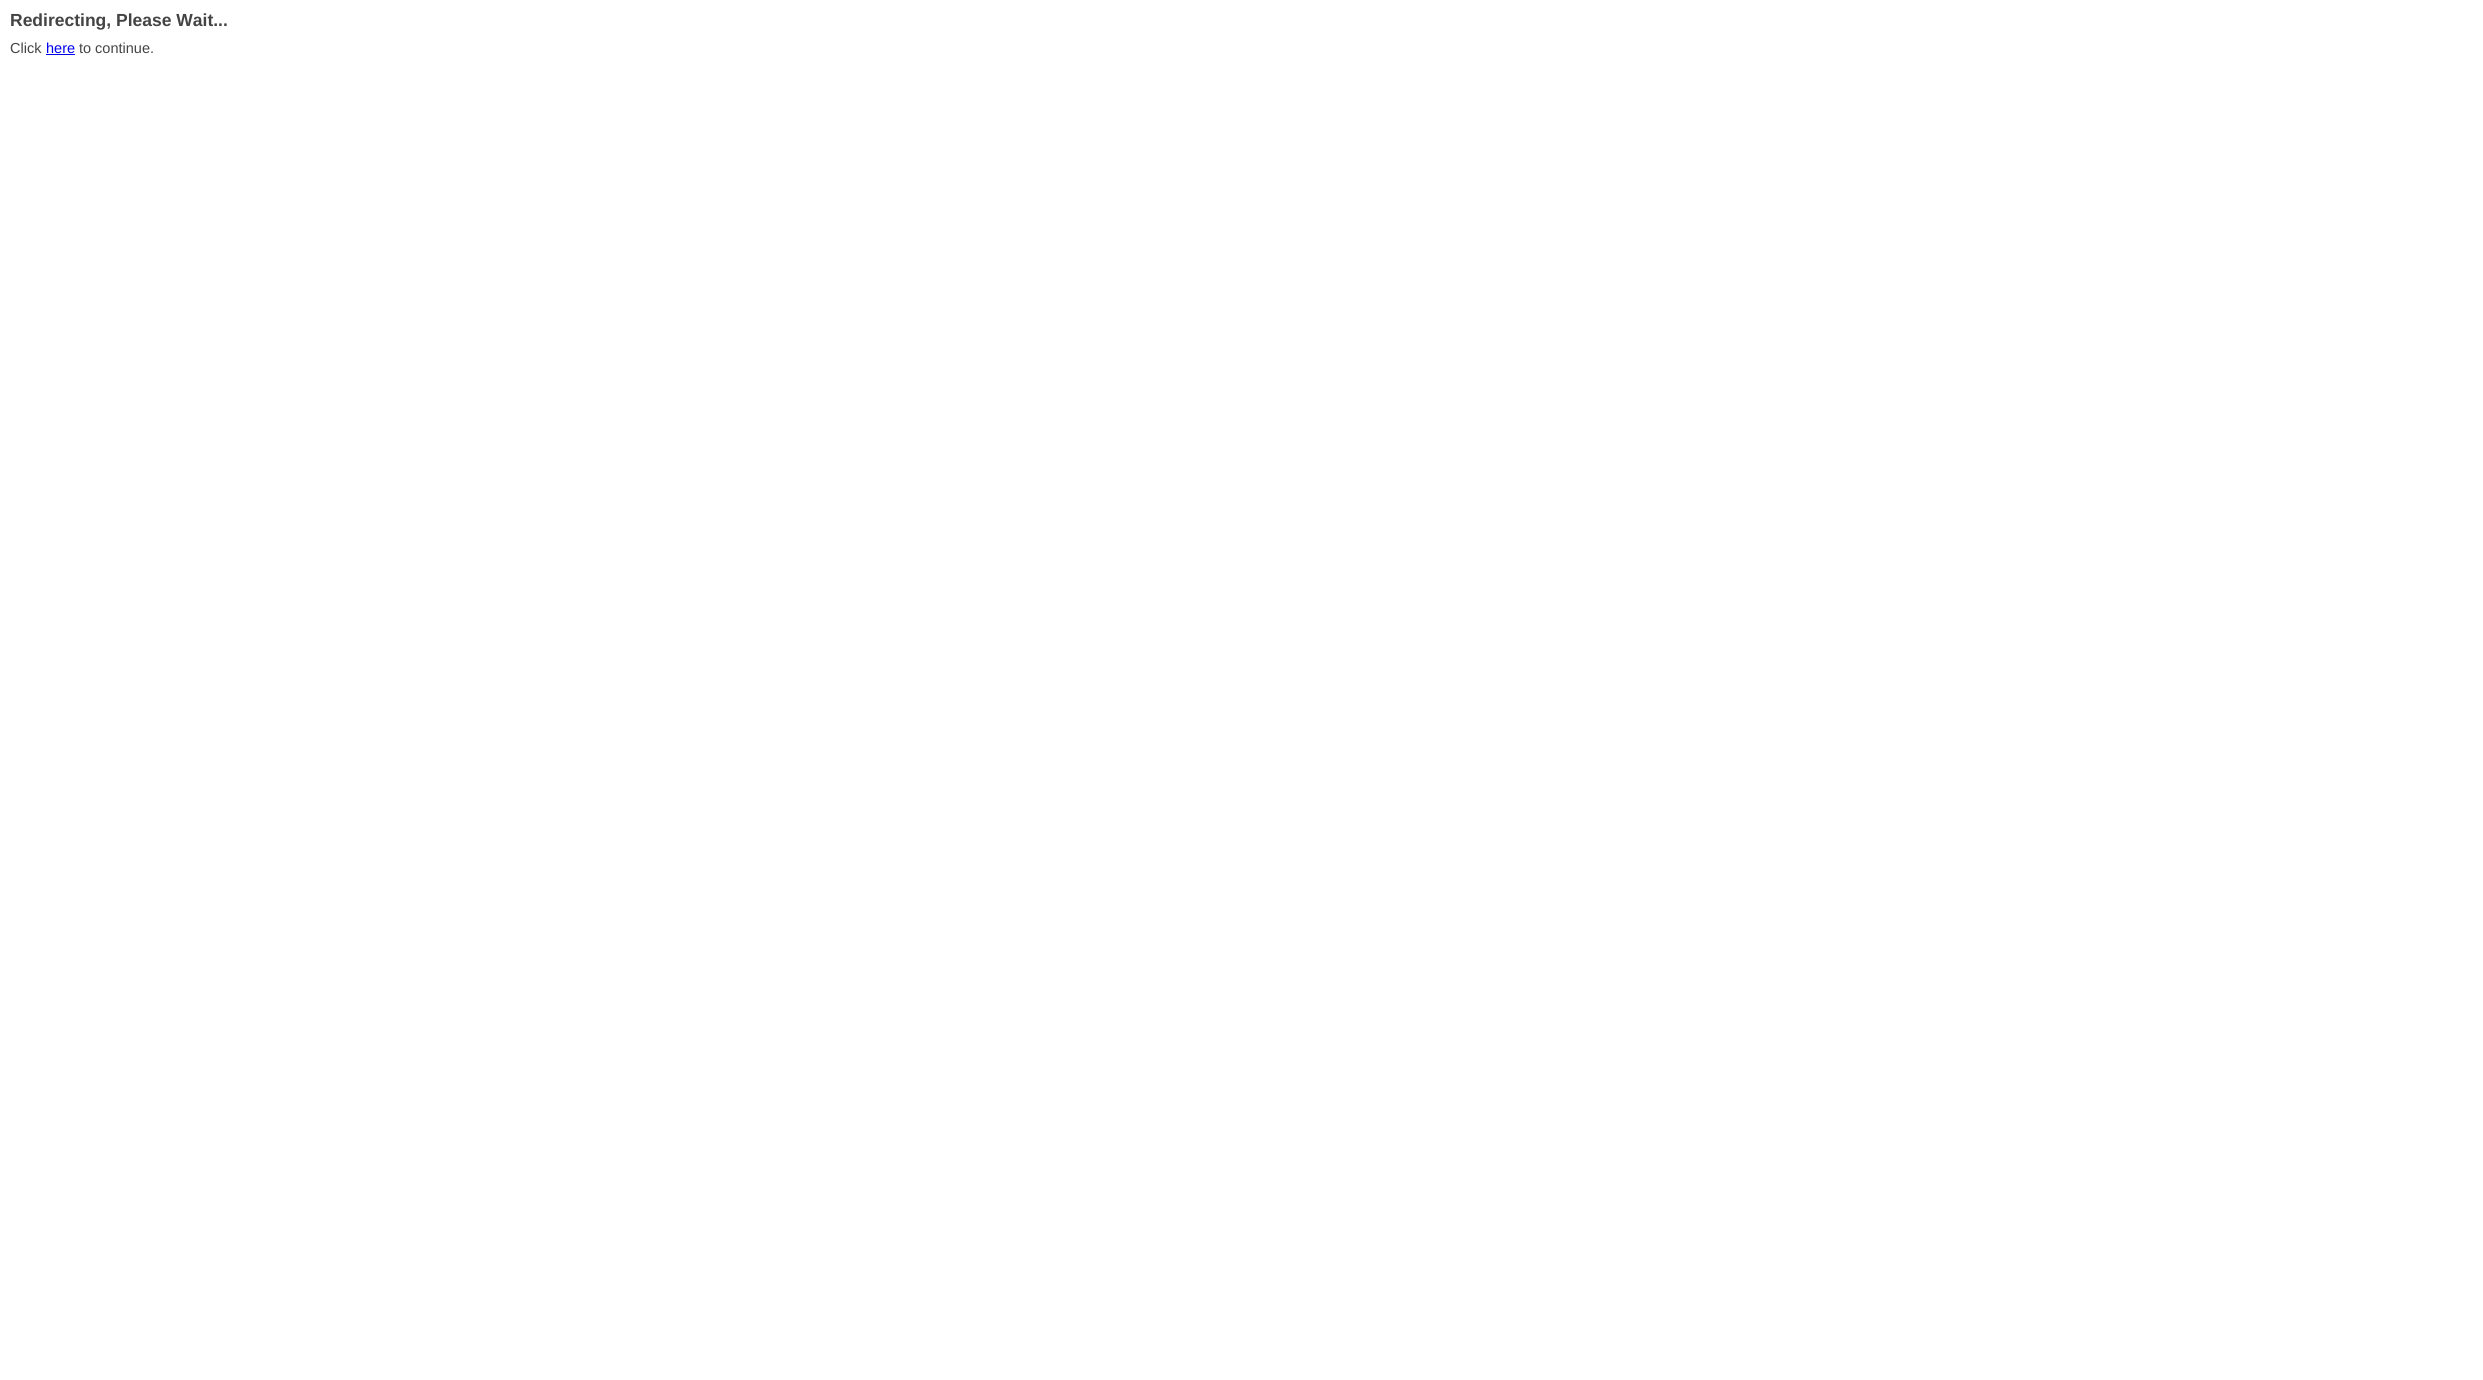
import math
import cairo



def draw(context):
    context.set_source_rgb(1, 1, 1)
    context.paint()
    context.set_source_rgb(0, 0, 238 / 255)
    context.rectangle(46, 54, 29, 1)
    context.fill()
    context.select_font_face("Liberation Sans", cairo.FontSlant.NORMAL, cairo.FontWeight.BOLD)
    context.set_font_size(17.5)
    context.set_source_rgb(68 / 255, 68 / 255, 68 / 255)
    context.move_to(10, 26)
    context.show_text("Redirecting, Please Wait...")
    context.select_font_face("Liberation Sans")
    context.set_font_size(14.5)
    context.move_to(10, 53)
    context.show_text("Click")
    context.set_source_rgb(0, 0, 238 / 255)
    context.move_to(46, 53)
    context.show_text("here")
    context.set_source_rgb(68 / 255, 68 / 255, 68 / 255)
    context.move_to(79, 53)
    context.show_text("to continue.")


surface = cairo.ImageSurface(cairo.Format.RGB24, 2483, 1380)
context = cairo.Context(surface)
options = cairo.FontOptions()
options.set_hint_metrics(cairo.HintMetrics.OFF)
options.set_hint_style(cairo.HintStyle.NONE)
context.set_font_options(options)
context.set_miter_limit(4)
draw(context)
surface.write_to_png("out.png")
